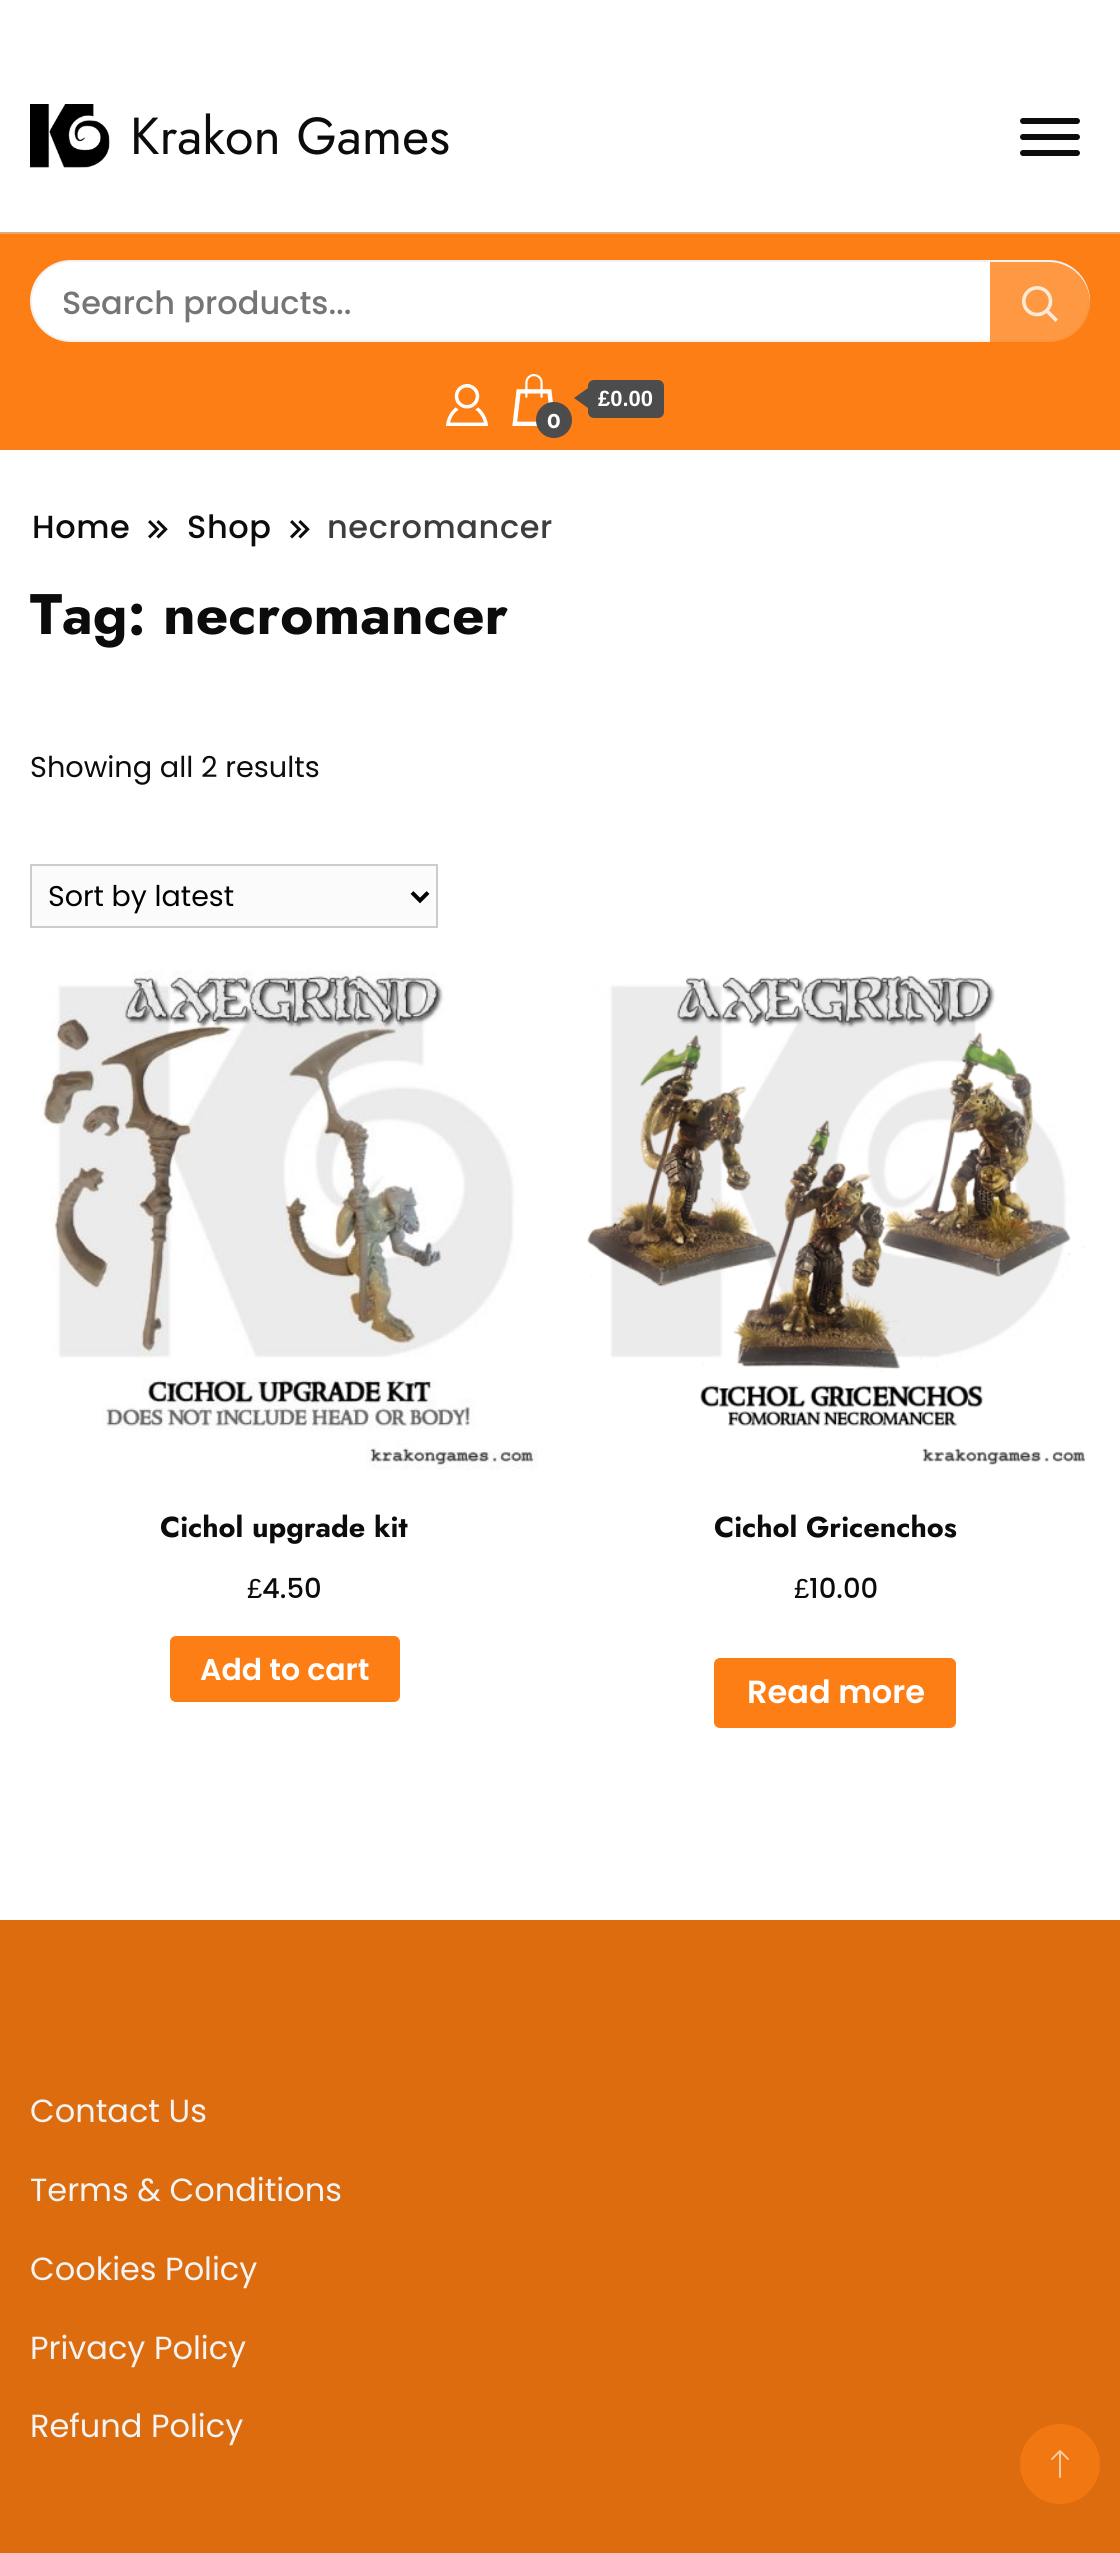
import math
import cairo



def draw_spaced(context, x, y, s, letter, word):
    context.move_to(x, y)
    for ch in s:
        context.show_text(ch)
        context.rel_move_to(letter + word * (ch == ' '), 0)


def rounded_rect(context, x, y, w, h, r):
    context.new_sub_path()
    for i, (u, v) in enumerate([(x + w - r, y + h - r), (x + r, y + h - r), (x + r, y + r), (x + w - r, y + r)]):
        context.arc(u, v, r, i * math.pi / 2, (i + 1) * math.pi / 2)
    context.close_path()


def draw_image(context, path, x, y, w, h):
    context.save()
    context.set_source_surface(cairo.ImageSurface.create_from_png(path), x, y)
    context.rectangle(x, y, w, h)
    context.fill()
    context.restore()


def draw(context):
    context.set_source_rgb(1, 1, 1)
    context.paint()
    draw_image(context, "images/1.png", 30, 104, 80, 64)
    context.set_source_rgb(12 / 255, 12 / 255, 12 / 255)
    rounded_rect(context, 1020, 118, 60, 6, 3)
    context.fill()
    rounded_rect(context, 1020, 134, 60, 6, 3)
    context.fill()
    rounded_rect(context, 1020, 150, 60, 6, 3)
    context.fill()
    context.set_source_rgb(253 / 255, 126 / 255, 20 / 255)
    context.rectangle(0, 234, 1120, 216)
    context.fill()
    context.set_source_rgb(231 / 255, 168 / 255, 116 / 255)
    context.rectangle(0, 232, 1120, 2)
    context.fill()
    context.set_source_rgb(1, 1, 1)
    rounded_rect(context, 31, 261, 1058, 80, 40)
    context.fill_preserve()
    context.set_source_rgb(243 / 255, 241 / 255, 241 / 255)
    context.stroke()
    context.set_source_rgba(253 / 255, 126 / 255, 20 / 255, 0.8)
    context.new_path()
    context.move_to(990, 262)
    context.line_to(1049, 262)
    context.curve_to(1071.5, 262, 1090, 280.5, 1090, 303)
    context.curve_to(1090, 325.5, 1071.5, 344, 1049, 344)
    context.line_to(990, 344)
    context.close_path()
    context.fill()
    draw_image(context, "images/2.png", 1022, 286, 36, 36)
    draw_image(context, "images/3.png", 446, 384, 42, 42)
    draw_image(context, "images/4.png", 512, 374, 41, 52)
    context.set_source_rgb(76 / 255, 76 / 255, 76 / 255)
    rounded_rect(context, 588, 380, 76, 38, 6)
    context.fill()
    context.new_path()
    context.move_to(588, 388)
    context.line_to(588, 408)
    context.line_to(574, 398)
    context.close_path()
    context.fill()
    context.arc(554, 420, 18, 0, 2 * math.pi)
    context.fill()
    draw_image(context, "images/5.png", 148, 520, 20, 19)
    draw_image(context, "images/5.png", 290, 520, 20, 19)
    context.set_source_rgb(251 / 255, 251 / 255, 251 / 255)
    context.rectangle(31, 865, 406, 62)
    context.fill_preserve()
    context.set_source_rgb(204 / 255, 204 / 255, 204 / 255)
    context.stroke()
    context.new_path()
    context.move_to(412, 892.5)
    context.line_to(420, 900.5)
    context.line_to(428, 892.5)
    context.set_source_rgb(0, 0, 0)
    context.set_line_width(4)
    context.stroke()
    draw_image(context, "images/6.png", 40, 970, 498, 500)
    context.set_source_rgb(253 / 255, 126 / 255, 20 / 255)
    rounded_rect(context, 170, 1636, 230, 66, 6)
    context.fill()
    draw_image(context, "images/7.png", 587, 975, 503, 490)
    rounded_rect(context, 714, 1658, 242, 70, 6)
    context.fill()
    context.set_source_rgb(221 / 255, 108 / 255, 14 / 255)
    context.rectangle(0, 1920, 1120, 633)
    context.fill()
    context.set_source_rgb(240 / 255, 119 / 255, 18 / 255)
    context.arc(1060, 2464, 40, 0, 2 * math.pi)
    context.fill()
    draw_image(context, "images/8.png", 1051, 2450, 18, 28)
    context.select_font_face("Jost")
    context.set_font_size(52)
    context.set_source_rgb(12 / 255, 12 / 255, 12 / 255)
    context.move_to(130, 154)
    context.show_text("Krakon Games")
    context.select_font_face("Poppins Medium")
    context.set_font_size(32)
    context.set_source_rgb(117 / 255, 117 / 255, 117 / 255)
    context.move_to(62, 314)
    context.show_text("Search products...")
    context.select_font_face("Liberation Sans", cairo.FontSlant.NORMAL, cairo.FontWeight.BOLD)
    context.set_font_size(22)
    context.set_source_rgb(1, 1, 1)
    context.move_to(598, 406)
    context.show_text("£0.00")
    context.select_font_face("Montserrat", cairo.FontSlant.NORMAL, cairo.FontWeight.BOLD)
    context.set_font_size(20)
    context.move_to(547, 428)
    context.show_text("0")
    context.select_font_face("Poppins Medium")
    context.set_font_size(32)
    context.set_source_rgb(12 / 255, 12 / 255, 12 / 255)
    draw_spaced(context, 32, 538, "Home", 0.6, 0)
    draw_spaced(context, 187, 538, "Shop", 0.6, 0)
    context.set_source_rgb(61 / 255, 61 / 255, 61 / 255)
    draw_spaced(context, 327, 538, "necromancer", 0.6, 0)
    context.select_font_face("Jost", cairo.FontSlant.NORMAL, cairo.FontWeight.BOLD)
    context.set_font_size(57)
    context.set_source_rgb(12 / 255, 12 / 255, 12 / 255)
    context.move_to(30, 634)
    context.show_text("Tag: necromancer")
    context.select_font_face("Poppins")
    context.set_font_size(28.75)
    context.move_to(30, 777)
    context.show_text("Showing all 2 results")
    context.set_font_size(28.5)
    context.set_source_rgb(0, 0, 0)
    context.move_to(48, 906)
    context.show_text("Sort by latest")
    context.select_font_face("Jost", cairo.FontSlant.NORMAL, cairo.FontWeight.BOLD)
    context.set_font_size(28.75)
    context.set_source_rgb(12 / 255, 12 / 255, 12 / 255)
    context.move_to(160, 1537)
    context.show_text("Cichol upgrade kit")
    context.select_font_face("Liberation Sans")
    context.set_font_size(27.5)
    context.move_to(247, 1598)
    context.show_text("£")
    context.select_font_face("Poppins Medium")
    context.move_to(262, 1598)
    context.show_text("4.50")
    context.select_font_face("Poppins SemiBold")
    context.set_font_size(30)
    context.set_source_rgb(1, 1, 1)
    context.move_to(200, 1680)
    context.show_text("Add to cart")
    context.select_font_face("Jost", cairo.FontSlant.NORMAL, cairo.FontWeight.BOLD)
    context.set_font_size(28.75)
    context.set_source_rgb(12 / 255, 12 / 255, 12 / 255)
    context.move_to(714, 1537)
    context.show_text("Cichol Gricenchos")
    context.select_font_face("Liberation Sans")
    context.set_font_size(27.5)
    context.move_to(794, 1598)
    context.show_text("£")
    context.select_font_face("Poppins Medium")
    context.move_to(809, 1598)
    context.show_text("10.00")
    context.select_font_face("Poppins SemiBold")
    context.set_font_size(32)
    context.set_source_rgb(1, 1, 1)
    context.move_to(747, 1703)
    context.show_text("Read more")
    context.select_font_face("Poppins")
    context.set_source_rgb(244 / 255, 244 / 255, 244 / 255)
    context.move_to(30, 2122)
    context.show_text("Contact Us")
    context.move_to(30, 2201)
    context.show_text("Terms & Conditions")
    context.move_to(30, 2280)
    context.show_text("Cookies Policy")
    context.move_to(30, 2359)
    context.show_text("Privacy Policy")
    context.move_to(30, 2437)
    context.show_text("Refund Policy")


surface = cairo.ImageSurface(cairo.Format.RGB24, 1120, 2553)
context = cairo.Context(surface)
options = cairo.FontOptions()
options.set_hint_metrics(cairo.HintMetrics.OFF)
options.set_hint_style(cairo.HintStyle.NONE)
context.set_font_options(options)
context.set_miter_limit(4)
draw(context)
surface.write_to_png("out.png")
